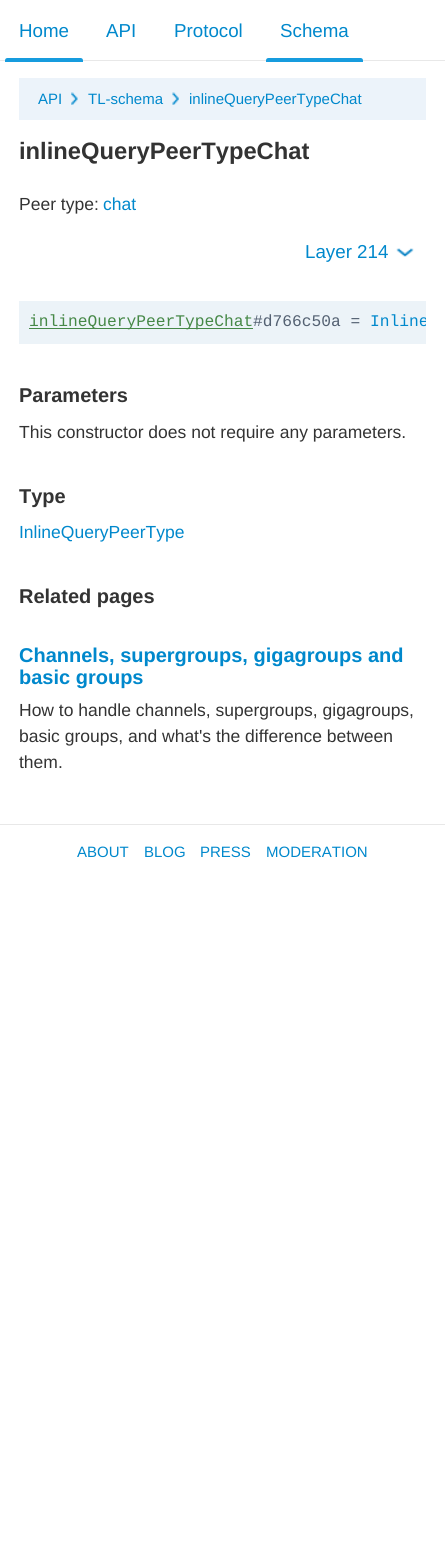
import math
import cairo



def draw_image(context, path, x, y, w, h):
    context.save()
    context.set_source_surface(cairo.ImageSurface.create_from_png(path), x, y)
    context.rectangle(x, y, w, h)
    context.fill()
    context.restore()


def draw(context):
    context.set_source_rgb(1, 1, 1)
    context.paint()
    context.set_source_rgb(232 / 255, 232 / 255, 232 / 255)
    context.rectangle(0, 60, 445, 1)
    context.fill()
    context.set_source_rgb(23 / 255, 156 / 255, 222 / 255)
    context.new_path()
    context.move_to(7.5, 58)
    context.line_to(80.5, 58)
    context.curve_to(82, 58, 83, 59, 83, 60.5)
    context.line_to(83, 62)
    context.line_to(5, 62)
    context.line_to(5, 60.5)
    context.curve_to(5, 59, 6, 58, 7.5, 58)
    context.close_path()
    context.fill()
    context.new_path()
    context.move_to(268.5, 58)
    context.line_to(360.5, 58)
    context.curve_to(362, 58, 363, 59, 363, 60.5)
    context.line_to(363, 62)
    context.line_to(266, 62)
    context.line_to(266, 60.5)
    context.curve_to(266, 59, 267, 58, 268.5, 58)
    context.close_path()
    context.fill()
    context.set_source_rgb(236 / 255, 243 / 255, 250 / 255)
    context.rectangle(19, 78, 407, 42)
    context.fill()
    draw_image(context, "images/1.png", 71, 92, 7, 13)
    draw_image(context, "images/2.png", 172, 92, 7, 13)
    draw_image(context, "images/3.png", 396, 248, 18, 9)
    context.set_source_rgb(236 / 255, 243 / 255, 248 / 255)
    context.rectangle(19, 301, 407, 43)
    context.fill()
    context.set_source_rgb(70 / 255, 136 / 255, 71 / 255)
    context.rectangle(29, 328, 224, 1)
    context.fill()
    context.set_source_rgb(232 / 255, 232 / 255, 232 / 255)
    context.rectangle(0, 824, 445, 1)
    context.fill()
    context.select_font_face("Liberation Sans")
    context.set_font_size(18.75)
    context.set_source_rgb(0, 136 / 255, 204 / 255)
    context.move_to(19, 37)
    context.show_text("Home")
    context.move_to(106, 37)
    context.show_text("API")
    context.move_to(174, 37)
    context.show_text("Protocol")
    context.move_to(280, 37)
    context.show_text("Schema")
    context.set_font_size(15)
    context.move_to(38, 104)
    context.show_text("API")
    context.move_to(88, 104)
    context.show_text("TL-schema")
    context.move_to(189, 104)
    context.show_text("inlineQueryPeerTypeChat")
    context.select_font_face("Liberation Sans", cairo.FontSlant.NORMAL, cairo.FontWeight.BOLD)
    context.set_font_size(23.75)
    context.set_source_rgb(51 / 255, 51 / 255, 51 / 255)
    context.move_to(19, 159)
    context.show_text("inlineQueryPeerTypeChat")
    context.select_font_face("Liberation Sans")
    context.set_font_size(17.5)
    context.move_to(19, 210)
    context.show_text("Peer type:")
    context.set_source_rgb(0, 136 / 255, 204 / 255)
    context.move_to(103, 210)
    context.show_text("chat")
    context.set_font_size(18.75)
    context.move_to(305, 258)
    context.show_text("Layer 214")
    context.select_font_face("Liberation Mono")
    context.set_font_size(16.25)
    context.set_source_rgb(70 / 255, 136 / 255, 71 / 255)
    context.move_to(29, 326)
    context.show_text("inlineQueryPeerTypeChat")
    context.set_source_rgb(84 / 255, 97 / 255, 114 / 255)
    context.move_to(253, 326)
    context.show_text("#d766c50a =")
    context.save()
    context.rectangle(19, 301, 407, 43)
    context.clip()
    context.set_source_rgb(0, 136 / 255, 204 / 255)
    context.move_to(370, 326)
    context.show_text("Inline")
    context.restore()
    context.select_font_face("Liberation Sans", cairo.FontSlant.NORMAL, cairo.FontWeight.BOLD)
    context.set_font_size(20)
    context.set_source_rgb(51 / 255, 51 / 255, 51 / 255)
    context.move_to(19, 402)
    context.show_text("Parameters")
    context.select_font_face("Liberation Sans")
    context.set_font_size(17.5)
    context.move_to(19, 438)
    context.show_text("This constructor does not require any parameters.")
    context.select_font_face("Liberation Sans", cairo.FontSlant.NORMAL, cairo.FontWeight.BOLD)
    context.set_font_size(20)
    context.move_to(19, 503)
    context.show_text("Type")
    context.select_font_face("Liberation Sans")
    context.set_font_size(17.5)
    context.set_source_rgb(0, 136 / 255, 204 / 255)
    context.move_to(19, 538)
    context.show_text("InlineQueryPeerType")
    context.select_font_face("Liberation Sans", cairo.FontSlant.NORMAL, cairo.FontWeight.BOLD)
    context.set_font_size(20)
    context.set_source_rgb(51 / 255, 51 / 255, 51 / 255)
    context.move_to(19, 603)
    context.show_text("Related pages")
    context.set_source_rgb(0, 136 / 255, 204 / 255)
    context.move_to(19, 662)
    context.show_text("Channels, supergroups, gigagroups and")
    context.move_to(19, 684)
    context.show_text("basic groups")
    context.select_font_face("Liberation Sans")
    context.set_font_size(17.5)
    context.set_source_rgb(51 / 255, 51 / 255, 51 / 255)
    context.move_to(19, 716)
    context.show_text("How to handle channels, supergroups, gigagroups,")
    context.move_to(19, 742)
    context.show_text("basic groups, and what's the difference between")
    context.move_to(19, 768)
    context.show_text("them.")
    context.set_font_size(15)
    context.set_source_rgb(0, 136 / 255, 204 / 255)
    context.move_to(77, 857)
    context.show_text("ABOUT")
    context.move_to(144, 857)
    context.show_text("BLOG")
    context.move_to(200, 857)
    context.show_text("PRESS")
    context.move_to(266, 857)
    context.show_text("MODERATION")


surface = cairo.ImageSurface(cairo.Format.RGB24, 445, 1551)
context = cairo.Context(surface)
options = cairo.FontOptions()
options.set_hint_metrics(cairo.HintMetrics.OFF)
options.set_hint_style(cairo.HintStyle.NONE)
context.set_font_options(options)
context.set_miter_limit(4)
draw(context)
surface.write_to_png("out.png")
